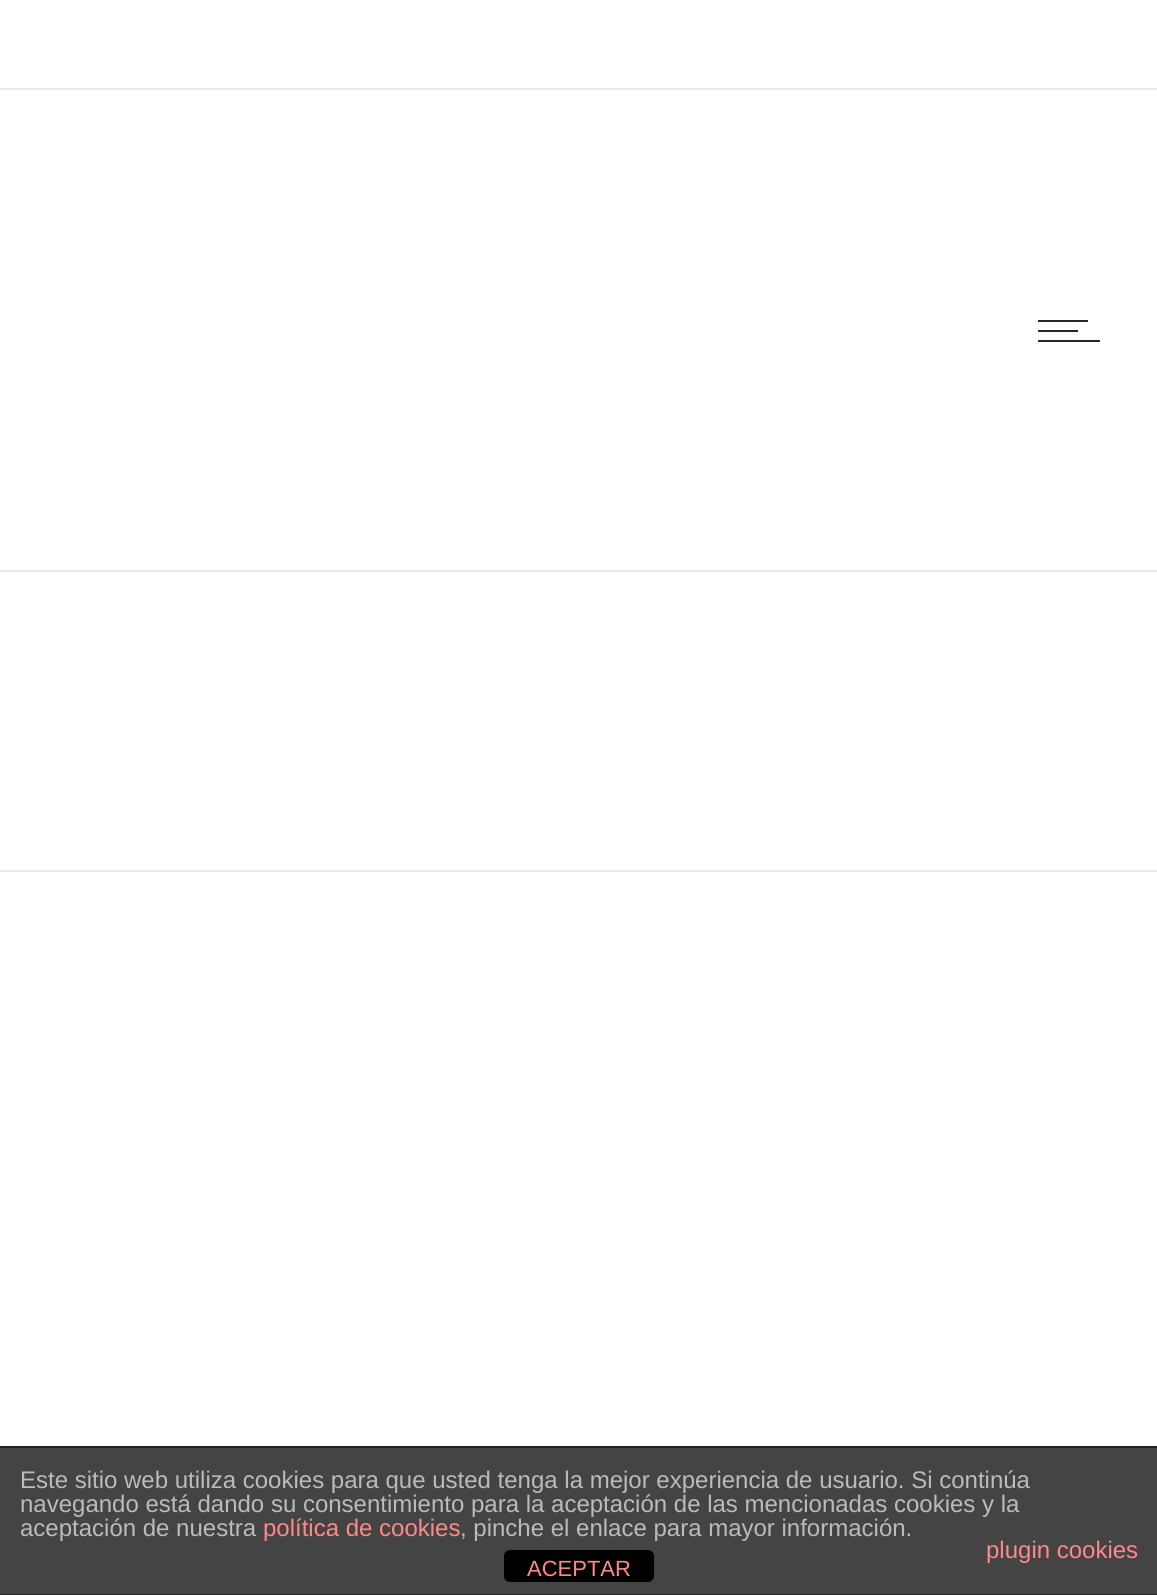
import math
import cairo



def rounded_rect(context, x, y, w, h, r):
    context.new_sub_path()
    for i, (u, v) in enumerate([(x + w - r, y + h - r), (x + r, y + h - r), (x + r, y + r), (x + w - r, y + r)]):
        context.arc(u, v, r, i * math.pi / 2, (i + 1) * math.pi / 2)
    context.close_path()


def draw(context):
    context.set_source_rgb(1, 1, 1)
    context.paint()
    context.set_source_rgb(234 / 255, 233 / 255, 234 / 255)
    context.rectangle(0, 570, 1157, 2)
    context.fill()
    context.rectangle(0, 88, 1157, 2)
    context.fill()
    context.set_source_rgb(40 / 255, 38 / 255, 43 / 255)
    context.rectangle(1038, 320, 50, 2)
    context.fill()
    context.rectangle(1038, 330, 40, 2)
    context.fill()
    context.rectangle(1038, 340, 62, 2)
    context.fill()
    context.set_source_rgb(232 / 255, 232 / 255, 232 / 255)
    context.rectangle(0, 870, 1157, 2)
    context.fill()
    context.set_source_rgb(68 / 255, 68 / 255, 68 / 255)
    context.rectangle(0, 1448, 1157, 146)
    context.fill()
    context.set_source_rgb(34 / 255, 34 / 255, 34 / 255)
    context.rectangle(0, 1446, 1157, 2)
    context.fill()
    context.rectangle(0, 1594, 1157, 1)
    context.fill()
    context.set_source_rgb(0, 0, 0)
    rounded_rect(context, 504, 1550, 150, 32, 6)
    context.fill()
    context.select_font_face("Liberation Sans")
    context.set_font_size(24)
    context.set_source_rgb(187 / 255, 187 / 255, 187 / 255)
    context.move_to(20, 1488)
    context.show_text("Este sitio web utiliza cookies para que usted tenga la mejor experiencia de usuario. Si continúa")
    context.move_to(20, 1512)
    context.show_text("navegando está dando su consentimiento para la aceptación de las mencionadas cookies y la")
    context.move_to(20, 1536)
    context.show_text("aceptación de nuestra")
    context.set_source_rgb(1, 136 / 255, 136 / 255)
    context.move_to(263, 1536)
    context.show_text("política de cookies")
    context.set_source_rgb(187 / 255, 187 / 255, 187 / 255)
    context.move_to(460, 1536)
    context.show_text(", pinche el enlace para mayor información.")
    context.set_source_rgb(1, 136 / 255, 136 / 255)
    context.move_to(986, 1558)
    context.show_text("plugin cookies")
    context.set_font_size(22)
    context.move_to(527, 1576)
    context.show_text("ACEPTAR")


surface = cairo.ImageSurface(cairo.Format.RGB24, 1157, 1595)
context = cairo.Context(surface)
options = cairo.FontOptions()
options.set_hint_metrics(cairo.HintMetrics.OFF)
options.set_hint_style(cairo.HintStyle.NONE)
context.set_font_options(options)
context.set_miter_limit(4)
draw(context)
surface.write_to_png("out.png")
